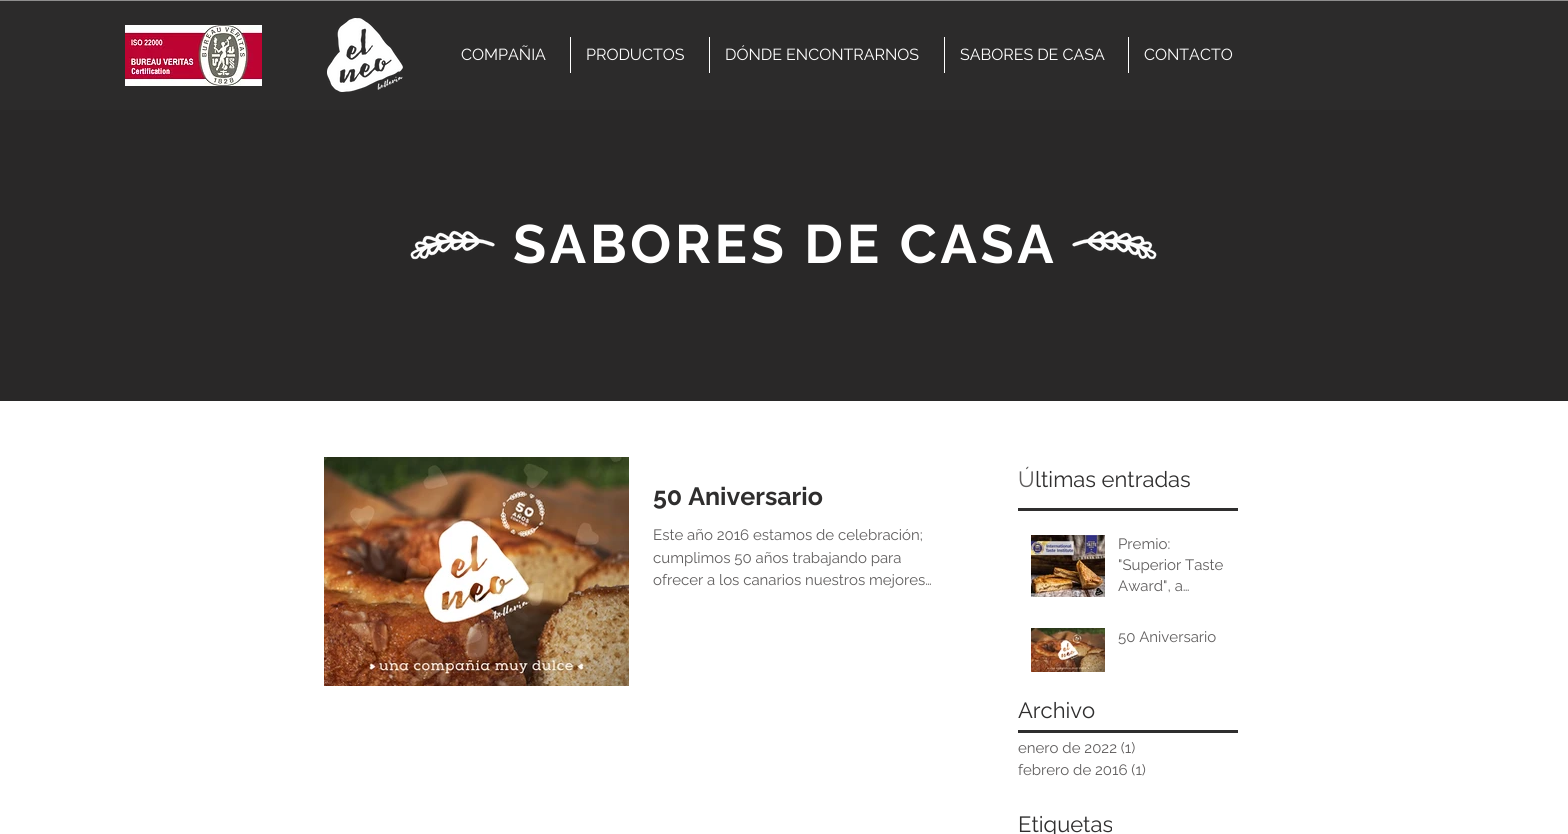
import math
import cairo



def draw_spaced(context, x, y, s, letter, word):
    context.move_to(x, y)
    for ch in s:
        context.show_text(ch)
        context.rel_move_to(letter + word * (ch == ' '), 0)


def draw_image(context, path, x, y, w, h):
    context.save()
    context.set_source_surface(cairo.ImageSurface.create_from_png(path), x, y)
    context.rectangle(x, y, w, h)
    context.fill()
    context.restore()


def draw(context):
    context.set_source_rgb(1, 1, 1)
    context.paint()
    context.set_source_rgb(143 / 255, 142 / 255, 142 / 255)
    context.rectangle(0, 0, 1568, 1)
    context.fill()
    context.set_source_rgb(44 / 255, 43 / 255, 43 / 255)
    context.rectangle(0, 1, 1568, 109)
    context.fill()
    draw_image(context, "images/1.png", 125, 25, 137, 61)
    draw_image(context, "images/2.png", 327, 18, 76, 74)
    context.set_source_rgb(1, 1, 1)
    context.rectangle(570, 37, 1, 36)
    context.fill()
    context.rectangle(709, 37, 1, 36)
    context.fill()
    context.rectangle(944, 37, 1, 36)
    context.fill()
    context.rectangle(1128, 37, 1, 36)
    context.fill()
    context.set_source_rgb(41 / 255, 40 / 255, 40 / 255)
    context.rectangle(0, 110, 1568, 291)
    context.fill()
    draw_image(context, "images/3.png", 410, 230, 85, 30)
    draw_image(context, "images/4.png", 1072, 230, 85, 30)
    draw_image(context, "images/5.png", 324, 457, 305, 229)
    context.set_source_rgb(47 / 255, 46 / 255, 46 / 255)
    context.rectangle(1018, 508, 220, 3)
    context.fill()
    draw_image(context, "images/6.png", 1031, 535, 74, 62)
    draw_image(context, "images/7.png", 1031, 628, 74, 44)
    context.rectangle(1018, 730, 220, 3)
    context.fill()
    context.select_font_face("Raleway")
    context.set_font_size(16)
    context.set_source_rgb(1, 1, 1)
    context.move_to(461, 60)
    context.show_text("COMPAÑIA")
    context.move_to(586, 60)
    context.show_text("PRODUCTOS")
    context.move_to(725, 60)
    context.show_text("DÓNDE ENCONTRARNOS")
    context.move_to(960, 60)
    context.show_text("SABORES DE CASA")
    context.move_to(1144, 60)
    context.show_text("CONTACTO")
    context.select_font_face("Raleway", cairo.FontSlant.NORMAL, cairo.FontWeight.BOLD)
    context.set_font_size(54)
    draw_spaced(context, 513, 263, "SABORES DE CASA", 3.75, 0)
    context.select_font_face("Raleway")
    context.set_font_size(22)
    context.set_source_rgb(96 / 255, 94 / 255, 94 / 255)
    context.move_to(1018, 487)
    context.show_text("Ú")
    context.set_source_rgb(47 / 255, 46 / 255, 46 / 255)
    context.move_to(1035, 487)
    context.show_text("ltimas entradas")
    context.select_font_face("Raleway", cairo.FontSlant.NORMAL, cairo.FontWeight.BOLD)
    context.set_font_size(25)
    context.move_to(653, 505)
    context.show_text("50 Aniversario")
    context.select_font_face("Raleway")
    context.set_font_size(15)
    context.set_source_rgb(96 / 255, 94 / 255, 94 / 255)
    context.move_to(653, 540)
    context.show_text("Este año 2016 estamos de celebración;")
    context.move_to(653, 563)
    context.show_text("cumplimos 50 años trabajando para")
    context.move_to(653, 585)
    context.show_text("ofrecer a los canarios nuestros mejores…")
    context.move_to(1118, 549)
    context.show_text("Premio:")
    context.move_to(1118, 570)
    context.show_text("\"Superior Taste")
    context.move_to(1118, 591)
    context.show_text("Award\", a…")
    context.move_to(1118, 642)
    context.show_text("50 Aniversario")
    context.set_font_size(22)
    context.set_source_rgb(47 / 255, 46 / 255, 46 / 255)
    context.move_to(1018, 718)
    context.show_text("Archivo")
    context.set_font_size(15)
    context.set_source_rgb(96 / 255, 94 / 255, 94 / 255)
    context.move_to(1018, 753)
    context.show_text("enero de 2022 (1)")
    context.move_to(1018, 775)
    context.show_text("febrero de 2016 (1)")
    context.set_font_size(22)
    context.set_source_rgb(47 / 255, 46 / 255, 46 / 255)
    context.move_to(1018, 832)
    context.show_text("Etiquetas")


surface = cairo.ImageSurface(cairo.Format.RGB24, 1568, 834)
context = cairo.Context(surface)
options = cairo.FontOptions()
options.set_hint_metrics(cairo.HintMetrics.OFF)
options.set_hint_style(cairo.HintStyle.NONE)
context.set_font_options(options)
context.set_miter_limit(4)
draw(context)
surface.write_to_png("out.png")
